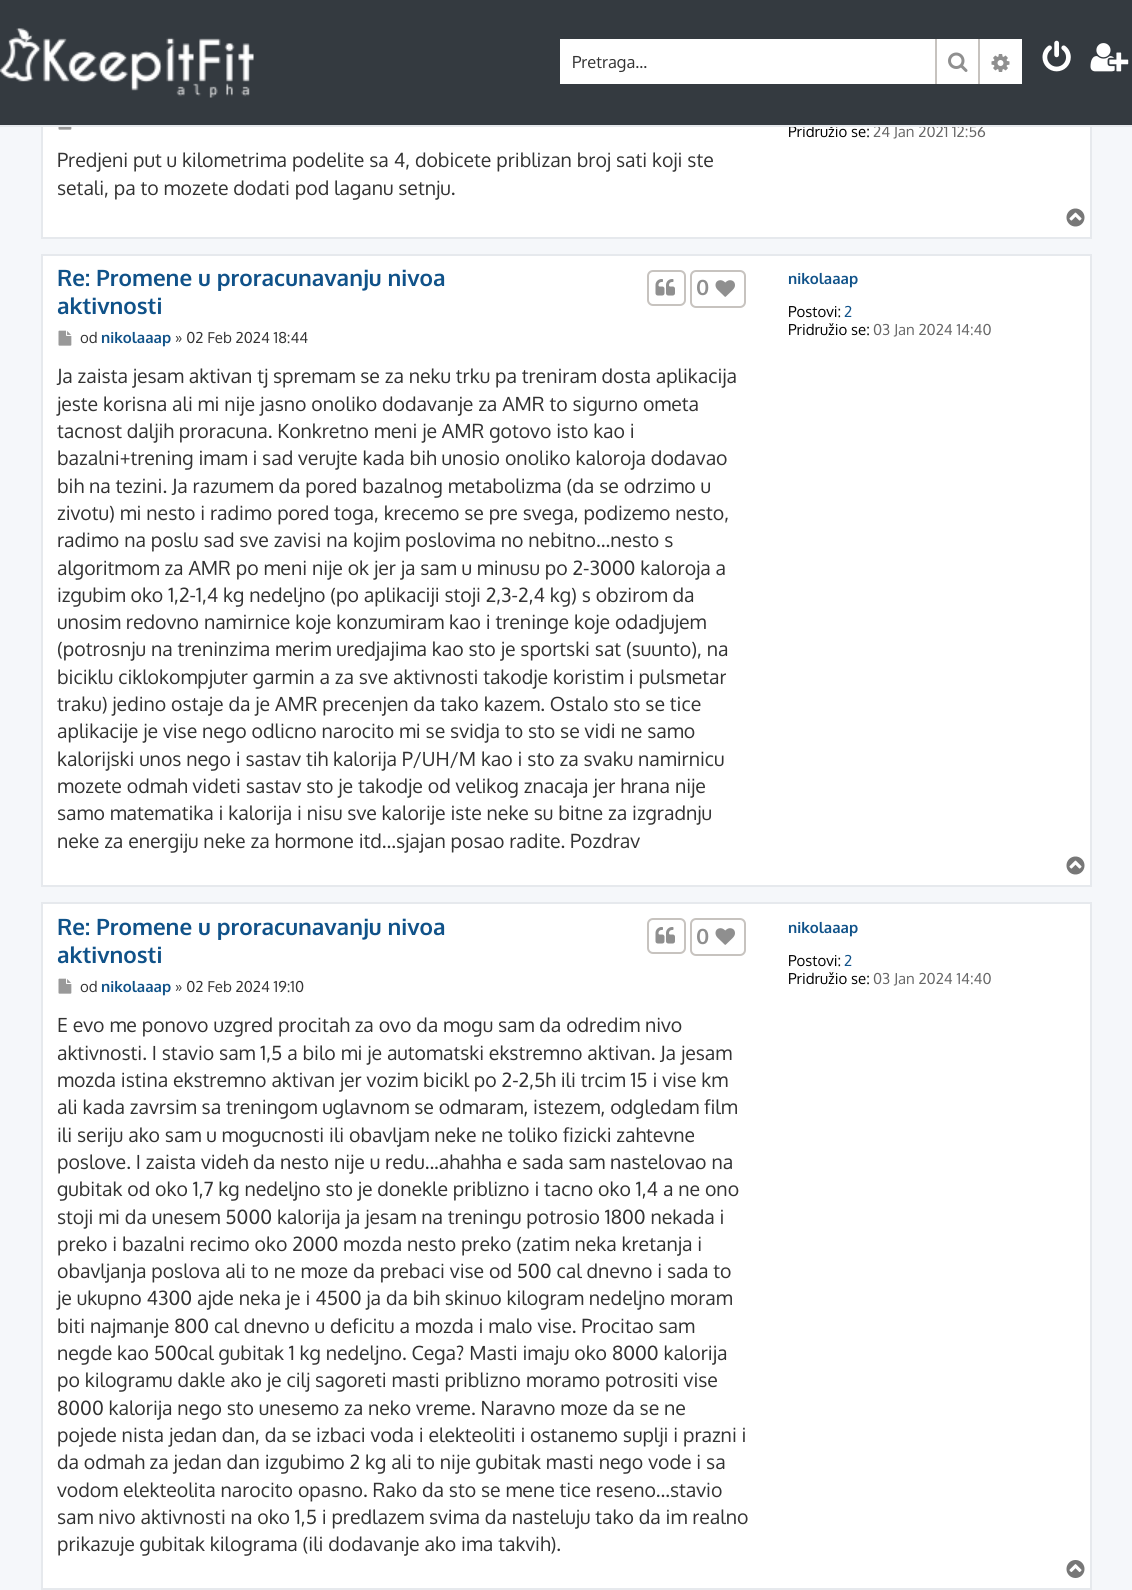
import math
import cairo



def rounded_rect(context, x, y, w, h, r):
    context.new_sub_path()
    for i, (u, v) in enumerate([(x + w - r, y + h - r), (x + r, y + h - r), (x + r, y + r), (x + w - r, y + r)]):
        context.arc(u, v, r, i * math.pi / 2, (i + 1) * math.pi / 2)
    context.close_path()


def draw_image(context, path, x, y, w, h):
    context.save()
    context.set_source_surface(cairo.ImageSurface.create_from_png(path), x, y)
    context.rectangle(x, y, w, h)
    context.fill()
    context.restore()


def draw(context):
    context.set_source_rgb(245 / 255, 247 / 255, 250 / 255)
    context.paint()
    context.set_source_rgb(1, 1, 1)
    context.rectangle(43, 127, 1047, 110)
    context.fill()
    context.rectangle(42, 39, 1049, 199)
    context.set_source_rgb(230 / 255, 233 / 255, 237 / 255)
    context.stroke()
    context.set_source_rgb(52 / 255, 58 / 255, 64 / 255)
    context.rectangle(0, 0, 1132, 125)
    context.fill()
    draw_image(context, "images/1.png", 0, 28, 254, 70)
    context.set_source_rgb(1, 1, 1)
    context.rectangle(560, 39, 375, 45)
    context.fill()
    context.rectangle(937, 39, 41, 45)
    context.fill()
    context.set_source_rgb(199 / 255, 195 / 255, 191 / 255)
    context.rectangle(978, 39, 2, 45)
    context.fill()
    context.rectangle(935, 39, 2, 45)
    context.fill()
    draw_image(context, "images/2.png", 948, 52, 20, 20)
    context.set_source_rgb(1, 1, 1)
    context.rectangle(980, 39, 42, 45)
    context.fill()
    draw_image(context, "images/3.png", 991, 54, 19, 18)
    draw_image(context, "images/4.png", 1042, 40, 29, 32)
    draw_image(context, "images/5.png", 1090, 43, 39, 29)
    draw_image(context, "images/6.png", 58, 127, 14, 3)
    draw_image(context, "images/7.png", 1066, 208, 19, 19)
    context.rectangle(42, 255, 1049, 631)
    context.fill_preserve()
    context.set_source_rgb(230 / 255, 233 / 255, 237 / 255)
    context.stroke()
    rounded_rect(context, 648, 271, 37, 34, 5)
    context.set_source_rgb(199 / 255, 195 / 255, 191 / 255)
    context.stroke()
    draw_image(context, "images/8.png", 655, 279, 20, 17)
    rounded_rect(context, 691, 271, 54, 36, 5)
    context.stroke()
    draw_image(context, "images/9.png", 715, 280, 20, 17)
    draw_image(context, "images/10.png", 58, 330, 14, 16)
    draw_image(context, "images/7.png", 1066, 856, 19, 19)
    context.set_source_rgb(1, 1, 1)
    context.rectangle(42, 903, 1049, 686)
    context.fill_preserve()
    context.set_source_rgb(230 / 255, 233 / 255, 237 / 255)
    context.stroke()
    rounded_rect(context, 648, 919, 37, 34, 5)
    context.set_source_rgb(199 / 255, 195 / 255, 191 / 255)
    context.stroke()
    draw_image(context, "images/8.png", 655, 927, 20, 17)
    rounded_rect(context, 691, 919, 54, 36, 5)
    context.stroke()
    draw_image(context, "images/9.png", 715, 928, 20, 17)
    draw_image(context, "images/10.png", 58, 978, 14, 16)
    draw_image(context, "images/11.png", 1066, 1560, 19, 18)
    context.select_font_face("Oxygen")
    context.set_font_size(16.5)
    context.set_source_rgb(51 / 255, 51 / 255, 51 / 255)
    context.move_to(572, 68)
    context.show_text("Pretraga…")
    context.set_font_size(15)
    context.set_source_rgb(0, 0, 0)
    context.move_to(788, 137)
    context.show_text("Pridružio se:")
    context.set_source_rgb(102 / 255, 102 / 255, 102 / 255)
    context.move_to(873, 137)
    context.show_text("24 Jan 2021 12:56")
    context.set_source_rgb(230 / 255, 233 / 255, 237 / 255)
    context.rectangle(0, 125, 1132, 2)
    context.fill()
    context.set_font_size(19.5)
    context.set_source_rgb(51 / 255, 51 / 255, 51 / 255)
    context.move_to(57, 167)
    context.show_text("Predjeni put u kilometrima podelite sa 4, dobicete priblizan broj sati koji ste")
    context.move_to(57, 195)
    context.show_text("setali, pa to mozete dodati pod laganu setnju.")
    context.select_font_face("Oxygen", cairo.FontSlant.NORMAL, cairo.FontWeight.BOLD)
    context.set_font_size(22.5)
    context.set_source_rgb(16 / 255, 82 / 255, 137 / 255)
    context.move_to(57, 286)
    context.show_text("Re: Promene u proracunavanju nivoa")
    context.move_to(57, 314)
    context.show_text("aktivnosti")
    context.set_font_size(21)
    context.set_source_rgb(143 / 255, 143 / 255, 143 / 255)
    context.move_to(696, 295)
    context.show_text("0")
    context.select_font_face("Oxygen")
    context.set_font_size(15)
    context.set_source_rgb(51 / 255, 51 / 255, 51 / 255)
    context.move_to(80, 343)
    context.show_text("od")
    context.select_font_face("Oxygen", cairo.FontSlant.NORMAL, cairo.FontWeight.BOLD)
    context.set_source_rgb(16 / 255, 82 / 255, 137 / 255)
    context.move_to(101, 343)
    context.show_text("nikolaaap")
    context.select_font_face("Oxygen")
    context.set_source_rgb(51 / 255, 51 / 255, 51 / 255)
    context.move_to(175, 343)
    context.show_text("» 02 Feb 2024 18:44")
    context.set_font_size(19.5)
    context.move_to(57, 383)
    context.show_text("Ja zaista jesam aktivan tj spremam se za neku trku pa treniram dosta aplikacija")
    context.move_to(57, 411)
    context.show_text("jeste korisna ali mi nije jasno onoliko dodavanje za AMR to sigurno ometa")
    context.move_to(57, 438)
    context.show_text("tacnost daljih proracuna. Konkretno meni je AMR gotovo isto kao i")
    context.move_to(57, 465)
    context.show_text("bazalni+trening imam i sad verujte kada bih unosio onoliko kaloroja dodavao")
    context.move_to(57, 493)
    context.show_text("bih na tezini. Ja razumem da pored bazalnog metabolizma (da se odrzimo u")
    context.move_to(57, 520)
    context.show_text("zivotu) mi nesto i radimo pored toga, krecemo se pre svega, podizemo nesto,")
    context.move_to(57, 547)
    context.show_text("radimo na poslu sad sve zavisi na kojim poslovima no nebitno...nesto s")
    context.move_to(57, 575)
    context.show_text("algoritmom za AMR po meni nije ok jer ja sam u minusu po 2-3000 kaloroja a")
    context.move_to(57, 602)
    context.show_text("izgubim oko 1,2-1,4 kg nedeljno (po aplikaciji stoji 2,3-2,4 kg) s obzirom da")
    context.move_to(57, 629)
    context.show_text("unosim redovno namirnice koje konzumiram kao i treninge koje odadjujem")
    context.move_to(57, 656)
    context.show_text("(potrosnju na treninzima merim uredjajima kao sto je sportski sat (suunto), na")
    context.move_to(57, 684)
    context.show_text("biciklu ciklokompjuter garmin a za sve aktivnosti takodje koristim i pulsmetar")
    context.move_to(57, 711)
    context.show_text("traku) jedino ostaje da je AMR precenjen da tako kazem. Ostalo sto se tice")
    context.move_to(57, 738)
    context.show_text("aplikacije je vise nego odlicno narocito mi se svidja to sto se vidi ne samo")
    context.move_to(57, 766)
    context.show_text("kalorijski unos nego i sastav tih kalorija P/UH/M kao i sto za svaku namirnicu")
    context.move_to(57, 793)
    context.show_text("mozete odmah videti sastav sto je takodje od velikog znacaja jer hrana nije")
    context.move_to(57, 820)
    context.show_text("samo matematika i kalorija i nisu sve kalorije iste neke su bitne za izgradnju")
    context.move_to(57, 848)
    context.show_text("neke za energiju neke za hormone itd...sjajan posao radite. Pozdrav")
    context.select_font_face("Oxygen", cairo.FontSlant.NORMAL, cairo.FontWeight.BOLD)
    context.set_font_size(15)
    context.set_source_rgb(16 / 255, 82 / 255, 137 / 255)
    context.move_to(788, 284)
    context.show_text("nikolaaap")
    context.select_font_face("Oxygen")
    context.set_source_rgb(0, 0, 0)
    context.move_to(788, 317)
    context.show_text("Postovi:")
    context.set_source_rgb(16 / 255, 82 / 255, 137 / 255)
    context.move_to(844, 317)
    context.show_text("2")
    context.set_source_rgb(0, 0, 0)
    context.move_to(788, 335)
    context.show_text("Pridružio se:")
    context.set_source_rgb(102 / 255, 102 / 255, 102 / 255)
    context.move_to(873, 335)
    context.show_text("03 Jan 2024 14:40")
    context.select_font_face("Oxygen", cairo.FontSlant.NORMAL, cairo.FontWeight.BOLD)
    context.set_font_size(22.5)
    context.set_source_rgb(16 / 255, 82 / 255, 137 / 255)
    context.move_to(57, 935)
    context.show_text("Re: Promene u proracunavanju nivoa")
    context.move_to(57, 963)
    context.show_text("aktivnosti")
    context.set_font_size(21)
    context.set_source_rgb(143 / 255, 143 / 255, 143 / 255)
    context.move_to(696, 944)
    context.show_text("0")
    context.select_font_face("Oxygen")
    context.set_font_size(15)
    context.set_source_rgb(51 / 255, 51 / 255, 51 / 255)
    context.move_to(80, 992)
    context.show_text("od")
    context.select_font_face("Oxygen", cairo.FontSlant.NORMAL, cairo.FontWeight.BOLD)
    context.set_source_rgb(16 / 255, 82 / 255, 137 / 255)
    context.move_to(101, 992)
    context.show_text("nikolaaap")
    context.select_font_face("Oxygen")
    context.set_source_rgb(51 / 255, 51 / 255, 51 / 255)
    context.move_to(175, 992)
    context.show_text("» 02 Feb 2024 19:10")
    context.set_font_size(19.5)
    context.move_to(57, 1032)
    context.show_text("E evo me ponovo uzgred procitah za ovo da mogu sam da odredim nivo")
    context.move_to(57, 1060)
    context.show_text("aktivnosti. I stavio sam 1,5 a bilo mi je automatski ekstremno aktivan. Ja jesam")
    context.move_to(57, 1087)
    context.show_text("mozda istina ekstremno aktivan jer vozim bicikl po 2-2,5h ili trcim 15 i vise km")
    context.move_to(57, 1114)
    context.show_text("ali kada zavrsim sa treningom uglavnom se odmaram, istezem, odgledam film")
    context.move_to(57, 1142)
    context.show_text("ili seriju ako sam u mogucnosti ili obavljam neke ne toliko fizicki zahtevne")
    context.move_to(57, 1169)
    context.show_text("poslove. I zaista videh da nesto nije u redu...ahahha e sada sam nastelovao na")
    context.move_to(57, 1196)
    context.show_text("gubitak od oko 1,7 kg nedeljno sto je donekle priblizno i tacno oko 1,4 a ne ono")
    context.move_to(57, 1224)
    context.show_text("stoji mi da unesem 5000 kalorija ja jesam na treningu potrosio 1800 nekada i")
    context.move_to(57, 1251)
    context.show_text("preko i bazalni recimo oko 2000 mozda nesto preko (zatim neka kretanja i")
    context.move_to(57, 1278)
    context.show_text("obavljanja poslova ali to ne moze da prebaci vise od 500 cal dnevno i sada to")
    context.move_to(57, 1305)
    context.show_text("je ukupno 4300 ajde neka je i 4500 ja da bih skinuo kilogram nedeljno moram")
    context.move_to(57, 1333)
    context.show_text("biti najmanje 800 cal dnevno u deficitu a mozda i malo vise. Procitao sam")
    context.move_to(57, 1360)
    context.show_text("negde kao 500cal gubitak 1 kg nedeljno. Cega? Masti imaju oko 8000 kalorija")
    context.move_to(57, 1387)
    context.show_text("po kilogramu dakle ako je cilj sagoreti masti priblizno moramo potrositi vise")
    context.move_to(57, 1415)
    context.show_text("8000 kalorija nego sto unesemo za neko vreme. Naravno moze da se ne")
    context.move_to(57, 1442)
    context.show_text("pojede nista jedan dan, da se izbaci voda i elekteoliti i ostanemo suplji i prazni i")
    context.move_to(57, 1469)
    context.show_text("da odmah za jedan dan izgubimo 2 kg ali to nije gubitak masti nego vode i sa")
    context.move_to(57, 1497)
    context.show_text("vodom elekteolita narocito opasno. Rako da sto se mene tice reseno...stavio")
    context.move_to(57, 1524)
    context.show_text("sam nivo aktivnosti na oko 1,5 i predlazem svima da nasteluju tako da im realno")
    context.move_to(57, 1551)
    context.show_text("prikazuje gubitak kilograma (ili dodavanje ako ima takvih).")
    context.select_font_face("Oxygen", cairo.FontSlant.NORMAL, cairo.FontWeight.BOLD)
    context.set_font_size(15)
    context.set_source_rgb(16 / 255, 82 / 255, 137 / 255)
    context.move_to(788, 933)
    context.show_text("nikolaaap")
    context.select_font_face("Oxygen")
    context.set_source_rgb(0, 0, 0)
    context.move_to(788, 966)
    context.show_text("Postovi:")
    context.set_source_rgb(16 / 255, 82 / 255, 137 / 255)
    context.move_to(844, 966)
    context.show_text("2")
    context.set_source_rgb(0, 0, 0)
    context.move_to(788, 984)
    context.show_text("Pridružio se:")
    context.set_source_rgb(102 / 255, 102 / 255, 102 / 255)
    context.move_to(873, 984)
    context.show_text("03 Jan 2024 14:40")


surface = cairo.ImageSurface(cairo.Format.RGB24, 1132, 1590)
context = cairo.Context(surface)
options = cairo.FontOptions()
options.set_hint_metrics(cairo.HintMetrics.OFF)
options.set_hint_style(cairo.HintStyle.NONE)
context.set_font_options(options)
context.set_miter_limit(4)
draw(context)
surface.write_to_png("out.png")
